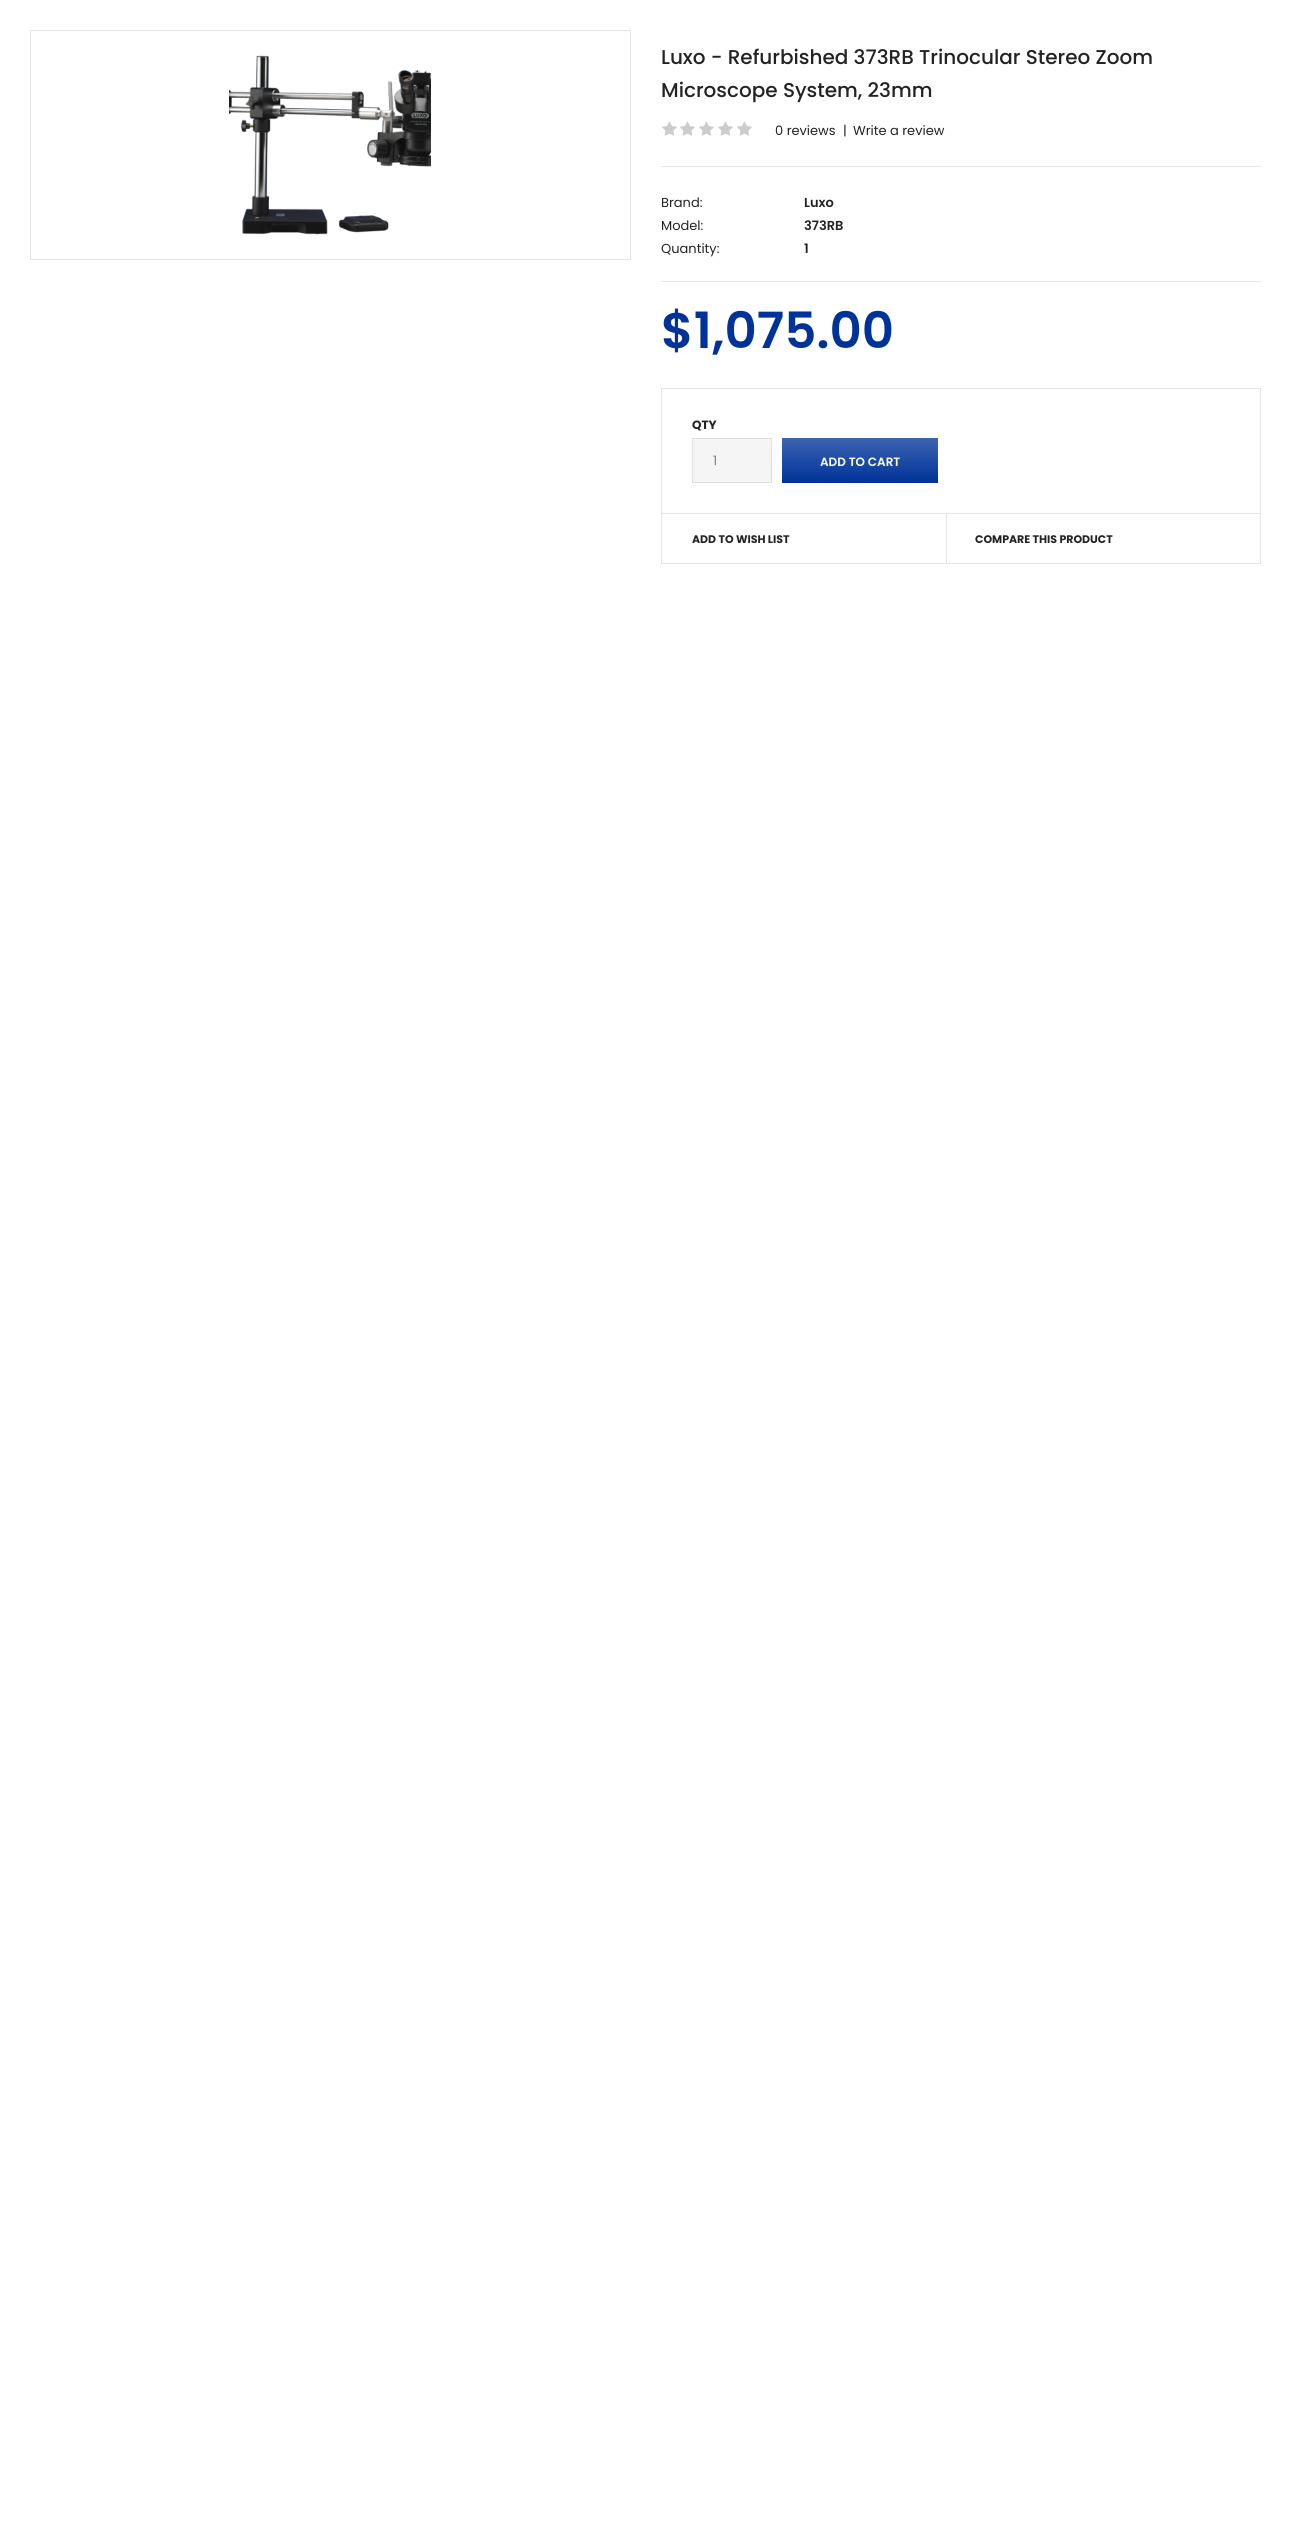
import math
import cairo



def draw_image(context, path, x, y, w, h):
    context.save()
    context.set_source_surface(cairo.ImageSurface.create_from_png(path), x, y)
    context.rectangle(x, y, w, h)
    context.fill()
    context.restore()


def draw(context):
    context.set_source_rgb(1, 1, 1)
    context.paint()
    context.rectangle(30.5, 30.5, 600, 229)
    context.set_source_rgb(229 / 255, 229 / 255, 229 / 255)
    context.set_line_width(1)
    context.stroke()
    draw_image(context, "images/1.png", 229, 55, 202, 180)
    context.rectangle(661, 166, 600, 1)
    context.fill()
    draw_image(context, "images/2.png", 662, 121, 15, 15)
    draw_image(context, "images/2.png", 680, 121, 15, 15)
    draw_image(context, "images/2.png", 699, 121, 15, 15)
    draw_image(context, "images/2.png", 718, 121, 15, 15)
    draw_image(context, "images/2.png", 737, 121, 15, 15)
    context.set_source_rgb(230 / 255, 230 / 255, 230 / 255)
    context.rectangle(661, 281, 600, 1)
    context.fill()
    context.rectangle(661.5, 388.5, 599, 175)
    context.set_source_rgb(229 / 255, 229 / 255, 229 / 255)
    context.stroke()
    context.set_source_rgb(245 / 255, 245 / 255, 245 / 255)
    context.rectangle(692.5, 438.5, 79, 44)
    context.fill_preserve()
    context.set_source_rgb(221 / 255, 221 / 255, 221 / 255)
    context.stroke()
    gradient = cairo.LinearGradient(860, 438, 860, 483)
    gradient.add_color_stop_rgba(0, 0, 51 / 255, 153 / 255, 1)
    gradient.add_color_stop_rgba(0, 61 / 255, 100 / 255, 177 / 255, 1)
    gradient.add_color_stop_rgba(0.99, 0, 51 / 255, 153 / 255, 1)
    context.set_source(gradient)
    context.rectangle(782, 438, 156, 45)
    context.fill()
    context.set_source_rgb(229 / 255, 229 / 255, 229 / 255)
    context.rectangle(662, 513, 598, 1)
    context.fill()
    context.rectangle(946, 514, 1, 49)
    context.fill()
    context.select_font_face("Poppins Medium")
    context.set_font_size(20)
    context.set_source_rgb(35 / 255, 35 / 255, 35 / 255)
    context.move_to(661, 64)
    context.show_text("Luxo - Refurbished 373RB Trinocular Stereo Zoom")
    context.move_to(661, 97)
    context.show_text("Microscope System, 23mm")
    context.select_font_face("Poppins")
    context.set_font_size(13)
    context.move_to(775, 135)
    context.show_text("0 reviews")
    context.move_to(843, 135)
    context.show_text("|")
    context.move_to(853, 135)
    context.show_text("Write a review")
    context.move_to(661, 207)
    context.show_text("Brand:")
    context.select_font_face("Poppins SemiBold")
    context.move_to(804, 207)
    context.show_text("Luxo")
    context.select_font_face("Poppins")
    context.move_to(661, 230)
    context.show_text("Model:")
    context.select_font_face("Poppins SemiBold")
    context.move_to(804, 230)
    context.show_text("373RB")
    context.select_font_face("Poppins")
    context.move_to(661, 253)
    context.show_text("Quantity:")
    context.select_font_face("Poppins SemiBold")
    context.move_to(804, 253)
    context.show_text("1")
    context.set_font_size(50)
    context.set_source_rgb(0, 51 / 255, 153 / 255)
    context.move_to(661, 348)
    context.show_text("$1,075.00")
    context.select_font_face("Poppins", cairo.FontSlant.NORMAL, cairo.FontWeight.BOLD)
    context.set_font_size(12)
    context.set_source_rgb(35 / 255, 35 / 255, 35 / 255)
    context.move_to(692, 429)
    context.show_text("QTY")
    context.select_font_face("Poppins")
    context.set_font_size(13)
    context.set_source_rgb(128 / 255, 128 / 255, 128 / 255)
    context.move_to(713, 465)
    context.show_text("1")
    context.select_font_face("Poppins SemiBold")
    context.set_font_size(12)
    context.set_source_rgb(1, 1, 1)
    context.move_to(820, 466)
    context.show_text("ADD TO CART")
    context.select_font_face("Poppins", cairo.FontSlant.NORMAL, cairo.FontWeight.BOLD)
    context.set_font_size(11)
    context.set_source_rgb(35 / 255, 35 / 255, 35 / 255)
    context.move_to(692, 543)
    context.show_text("ADD TO WISH LIST")
    context.move_to(975, 543)
    context.show_text("COMPARE THIS PRODUCT")


surface = cairo.ImageSurface(cairo.Format.RGB24, 1291, 2527)
context = cairo.Context(surface)
options = cairo.FontOptions()
options.set_hint_metrics(cairo.HintMetrics.OFF)
options.set_hint_style(cairo.HintStyle.NONE)
context.set_font_options(options)
context.set_miter_limit(4)
draw(context)
surface.write_to_png("out.png")
